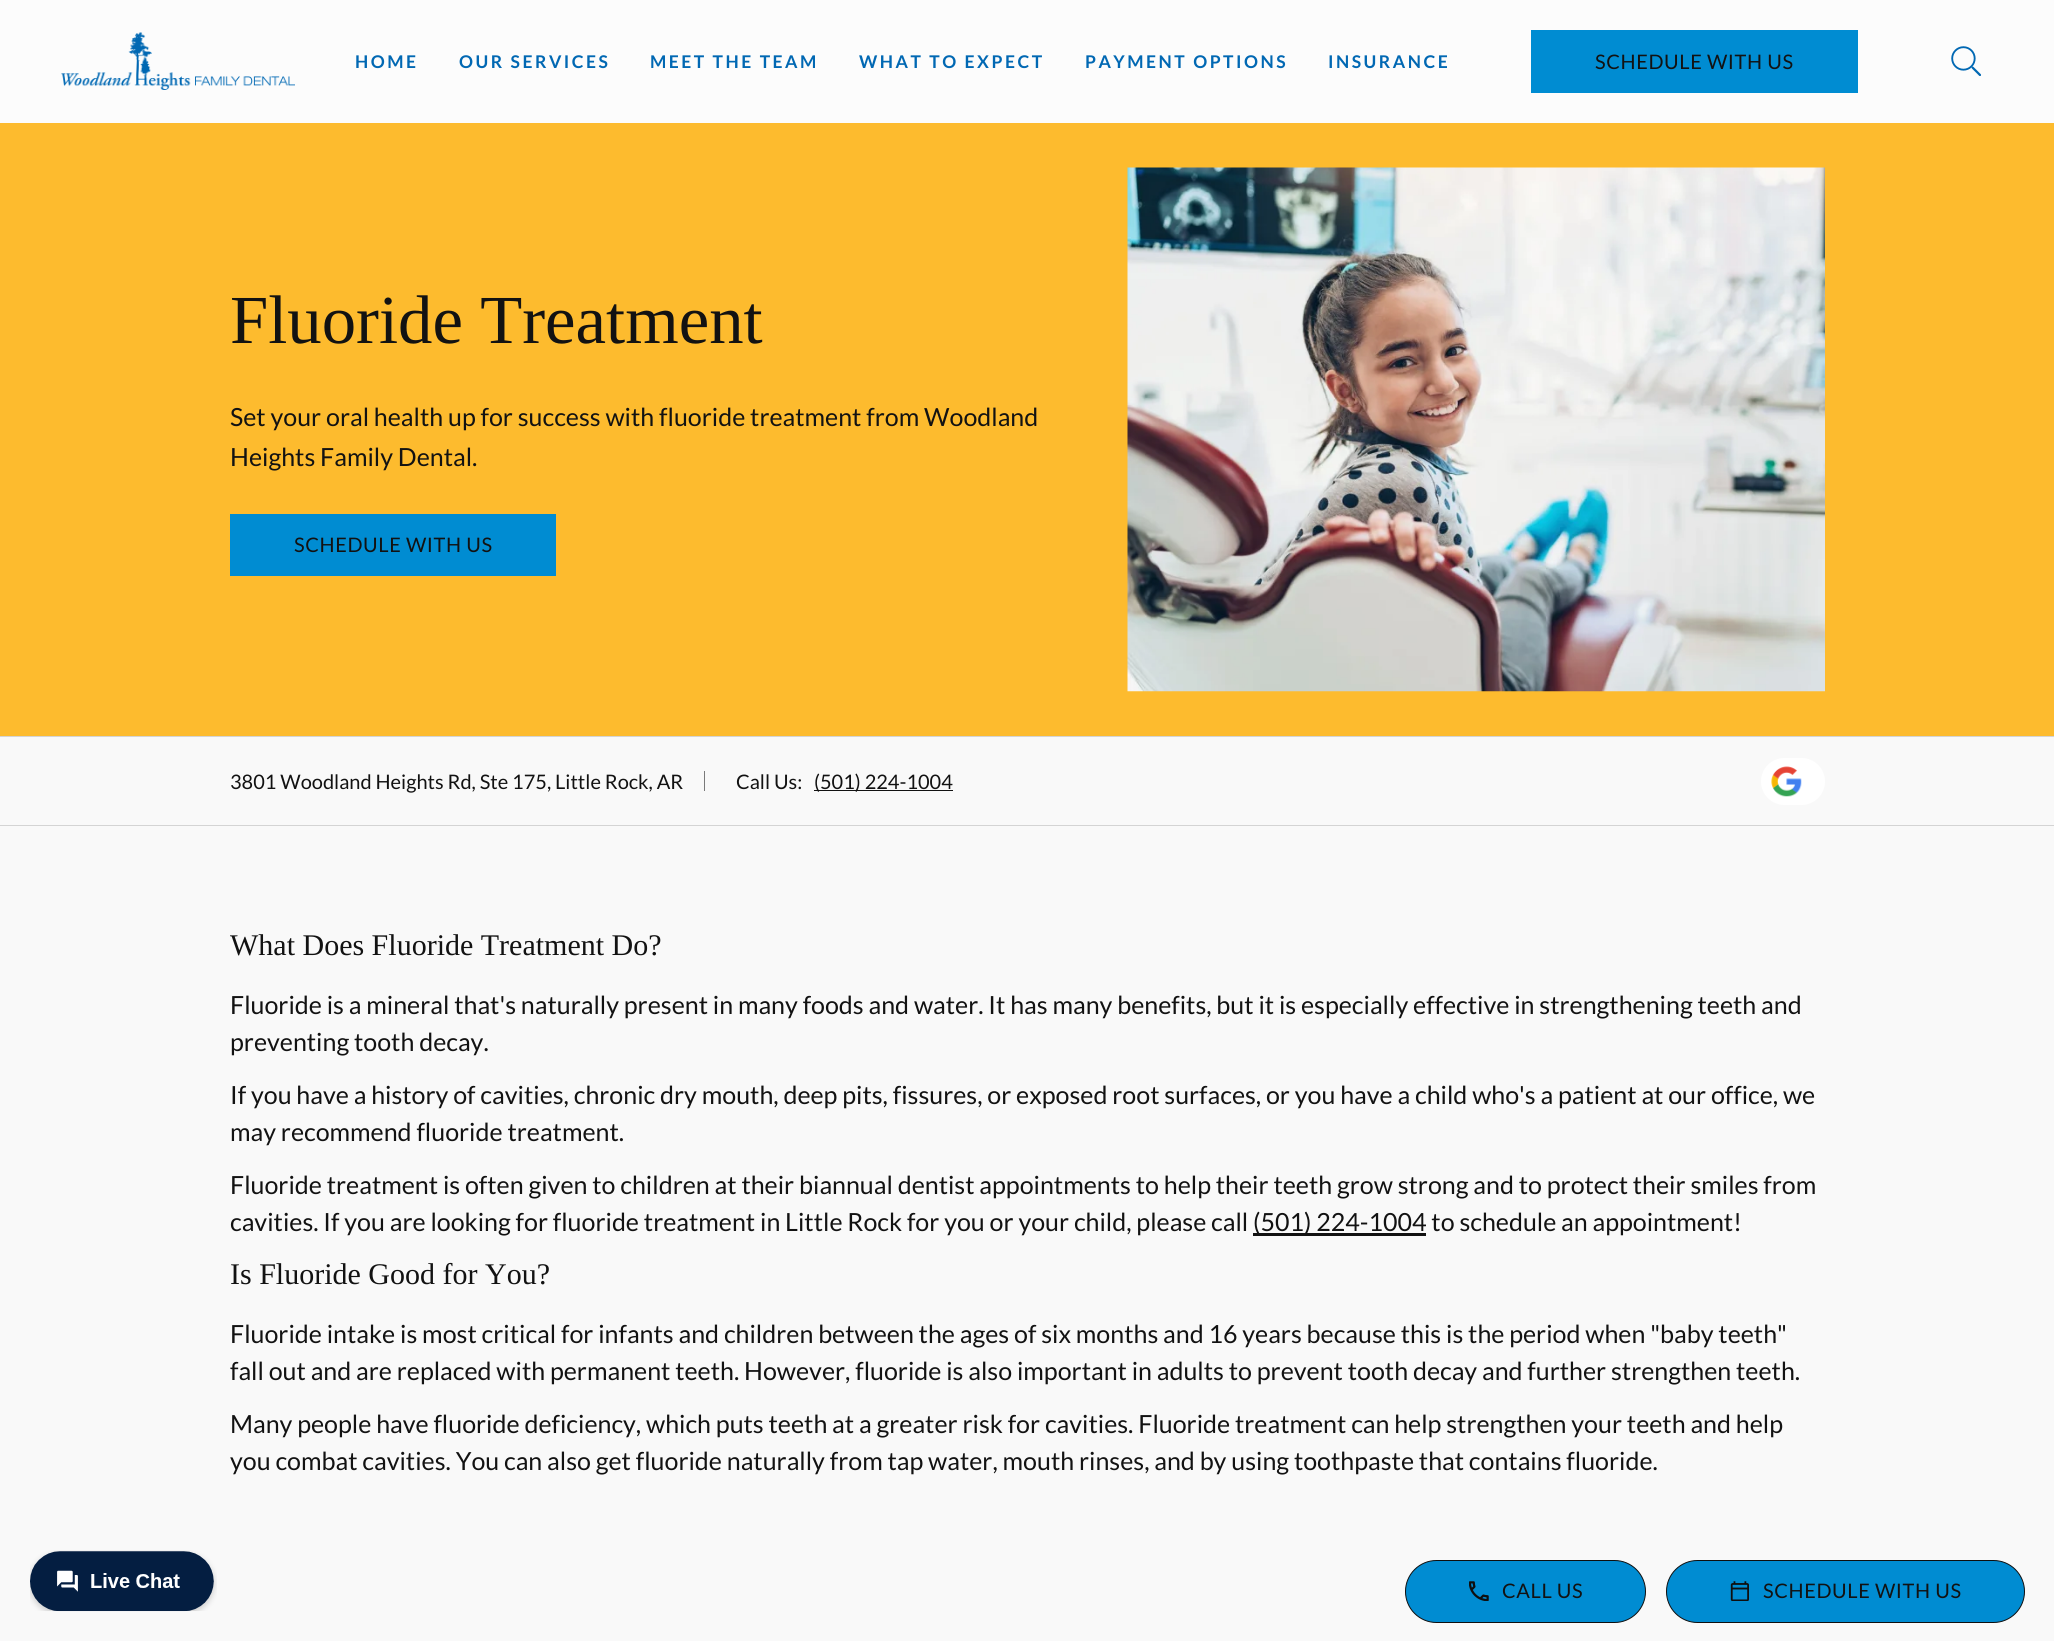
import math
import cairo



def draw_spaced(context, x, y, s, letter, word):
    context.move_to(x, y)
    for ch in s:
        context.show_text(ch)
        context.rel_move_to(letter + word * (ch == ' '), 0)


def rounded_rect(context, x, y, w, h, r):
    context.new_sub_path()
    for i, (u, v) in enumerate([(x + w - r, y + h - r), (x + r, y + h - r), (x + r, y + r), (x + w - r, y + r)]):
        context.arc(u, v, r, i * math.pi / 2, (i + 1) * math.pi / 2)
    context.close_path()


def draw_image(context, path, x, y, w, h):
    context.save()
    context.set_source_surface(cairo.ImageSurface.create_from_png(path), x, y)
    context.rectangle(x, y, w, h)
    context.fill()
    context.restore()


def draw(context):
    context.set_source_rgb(249 / 255, 249 / 255, 249 / 255)
    context.paint()
    draw_image(context, "images/1.png", 30, 1550, 187, 62)
    context.set_source_rgb(252 / 255, 252 / 255, 252 / 255)
    context.rectangle(0, 0, 2054, 123)
    context.fill()
    draw_image(context, "images/2.png", 61, 32, 234, 58)
    context.set_source_rgb(0, 140 / 255, 210 / 255)
    context.rectangle(1531, 30, 327, 63)
    context.fill()
    draw_image(context, "images/3.png", 1951, 46, 30, 30)
    context.set_source_rgb(253 / 255, 187 / 255, 46 / 255)
    context.rectangle(0, 123, 2054, 613)
    context.fill()
    context.set_source_rgb(0, 140 / 255, 210 / 255)
    context.rectangle(230, 514, 326, 62)
    context.fill()
    draw_image(context, "images/4.png", 1127, 167, 698, 525)
    context.set_source_rgb(212 / 255, 212 / 255, 212 / 255)
    context.rectangle(0, 736, 2054, 1)
    context.fill()
    context.rectangle(0, 825, 2054, 1)
    context.fill()
    context.set_source_rgb(122 / 255, 122 / 255, 122 / 255)
    context.rectangle(704, 771, 1, 20)
    context.fill()
    context.set_source_rgb(18 / 255, 18 / 255, 18 / 255)
    context.rectangle(814, 790, 139, 1)
    context.fill()
    context.set_source_rgb(1, 1, 1)
    rounded_rect(context, 1761, 758, 64, 47, 23.5)
    context.fill()
    draw_image(context, "images/5.png", 1771, 766, 31, 31)
    context.set_source_rgb(18 / 255, 18 / 255, 18 / 255)
    context.rectangle(1253, 1233, 173, 3)
    context.fill()
    context.set_source_rgb(0, 140 / 255, 210 / 255)
    rounded_rect(context, 1405.5, 1560.5, 240, 62, 31)
    context.fill_preserve()
    context.set_source_rgb(15 / 255, 15 / 255, 15 / 255)
    context.set_line_width(1)
    context.stroke()
    draw_image(context, "images/6.png", 1469, 1581, 20, 20)
    context.set_source_rgb(0, 140 / 255, 210 / 255)
    rounded_rect(context, 1666.5, 1560.5, 358, 62, 31)
    context.fill_preserve()
    context.set_source_rgb(15 / 255, 15 / 255, 15 / 255)
    context.stroke()
    draw_image(context, "images/7.png", 1730, 1581, 19, 20)
    context.select_font_face("Lato", cairo.FontSlant.NORMAL, cairo.FontWeight.BOLD)
    context.set_font_size(17.5)
    context.set_source_rgb(1 / 255, 104 / 255, 179 / 255)
    draw_spaced(context, 355, 68, "HOME", 2.5, 0)
    draw_spaced(context, 459, 68, "OUR SERVICES", 2.5, 0)
    draw_spaced(context, 650, 68, "MEET THE TEAM", 2.5, 0)
    draw_spaced(context, 859, 68, "WHAT TO EXPECT", 2.5, 0)
    draw_spaced(context, 1085, 68, "PAYMENT OPTIONS", 2.5, 0)
    draw_spaced(context, 1328, 68, "INSURANCE", 2.5, 0)
    context.select_font_face("Lato")
    context.set_font_size(20)
    context.set_source_rgb(18 / 255, 18 / 255, 18 / 255)
    draw_spaced(context, 1595, 69, "SCHEDULE WITH US", 0.6, 0)
    context.select_font_face("Liberation Serif")
    context.set_font_size(68.75)
    context.move_to(230, 343)
    context.show_text("Fluoride Treatment")
    context.select_font_face("Lato")
    context.set_font_size(25)
    context.move_to(230, 426)
    context.show_text("Set your oral health up for success with fluoride treatment from Woodland")
    context.move_to(230, 466)
    context.show_text("Heights Family Dental.")
    context.set_font_size(20)
    draw_spaced(context, 294, 552, "SCHEDULE WITH US", 0.6, 0)
    context.move_to(230, 789)
    context.show_text("3801 Woodland Heights Rd, Ste 175, Little Rock, AR")
    context.move_to(736, 789)
    context.show_text("Call Us:")
    context.move_to(814, 789)
    context.show_text("(501) 224-1004")
    context.select_font_face("Liberation Serif")
    context.set_font_size(30)
    context.move_to(230, 955)
    context.show_text("What Does Fluoride Treatment Do?")
    context.select_font_face("Lato")
    context.set_font_size(25)
    context.move_to(230, 1014)
    context.show_text("Fluoride is a mineral that's naturally present in many foods and water. It has many benefits, but it is especially effective in strengthening teeth and")
    context.move_to(230, 1051)
    context.show_text("preventing tooth decay.")
    context.move_to(230, 1104)
    context.show_text("If you have a history of cavities, chronic dry mouth, deep pits, fissures, or exposed root surfaces, or you have a child who's a patient at our office, we")
    context.move_to(230, 1141)
    context.show_text("may recommend fluoride treatment.")
    context.move_to(230, 1194)
    context.show_text("Fluoride treatment is often given to children at their biannual dentist appointments to help their teeth grow strong and to protect their smiles from")
    context.move_to(230, 1231)
    context.show_text("cavities. If you are looking for fluoride treatment in Little Rock for you or your child, please call")
    context.move_to(1253, 1231)
    context.show_text("(501) 224-1004 to schedule an appointment!")
    context.select_font_face("Liberation Serif")
    context.set_font_size(30)
    context.move_to(230, 1284)
    context.show_text("Is Fluoride Good for You?")
    context.select_font_face("Lato")
    context.set_font_size(25)
    context.move_to(230, 1343)
    context.show_text("Fluoride intake is most critical for infants and children between the ages of six months and 16 years because this is the period when \"baby teeth\"")
    context.move_to(230, 1380)
    context.show_text("fall out and are replaced with permanent teeth. However, fluoride is also important in adults to prevent tooth decay and further strengthen teeth.")
    context.move_to(230, 1433)
    context.show_text("Many people have fluoride deficiency, which puts teeth at a greater risk for cavities. Fluoride treatment can help strengthen your teeth and help")
    context.move_to(230, 1470)
    context.show_text("you combat cavities. You can also get fluoride naturally from tap water, mouth rinses, and by using toothpaste that contains fluoride.")
    context.set_font_size(20)
    draw_spaced(context, 1502, 1598, "CALL US", 0.6, 0)
    draw_spaced(context, 1763, 1598, "SCHEDULE WITH US", 0.6, 0)


surface = cairo.ImageSurface(cairo.Format.RGB24, 2054, 1641)
context = cairo.Context(surface)
options = cairo.FontOptions()
options.set_hint_metrics(cairo.HintMetrics.OFF)
options.set_hint_style(cairo.HintStyle.NONE)
context.set_font_options(options)
context.set_miter_limit(4)
draw(context)
surface.write_to_png("out.png")
